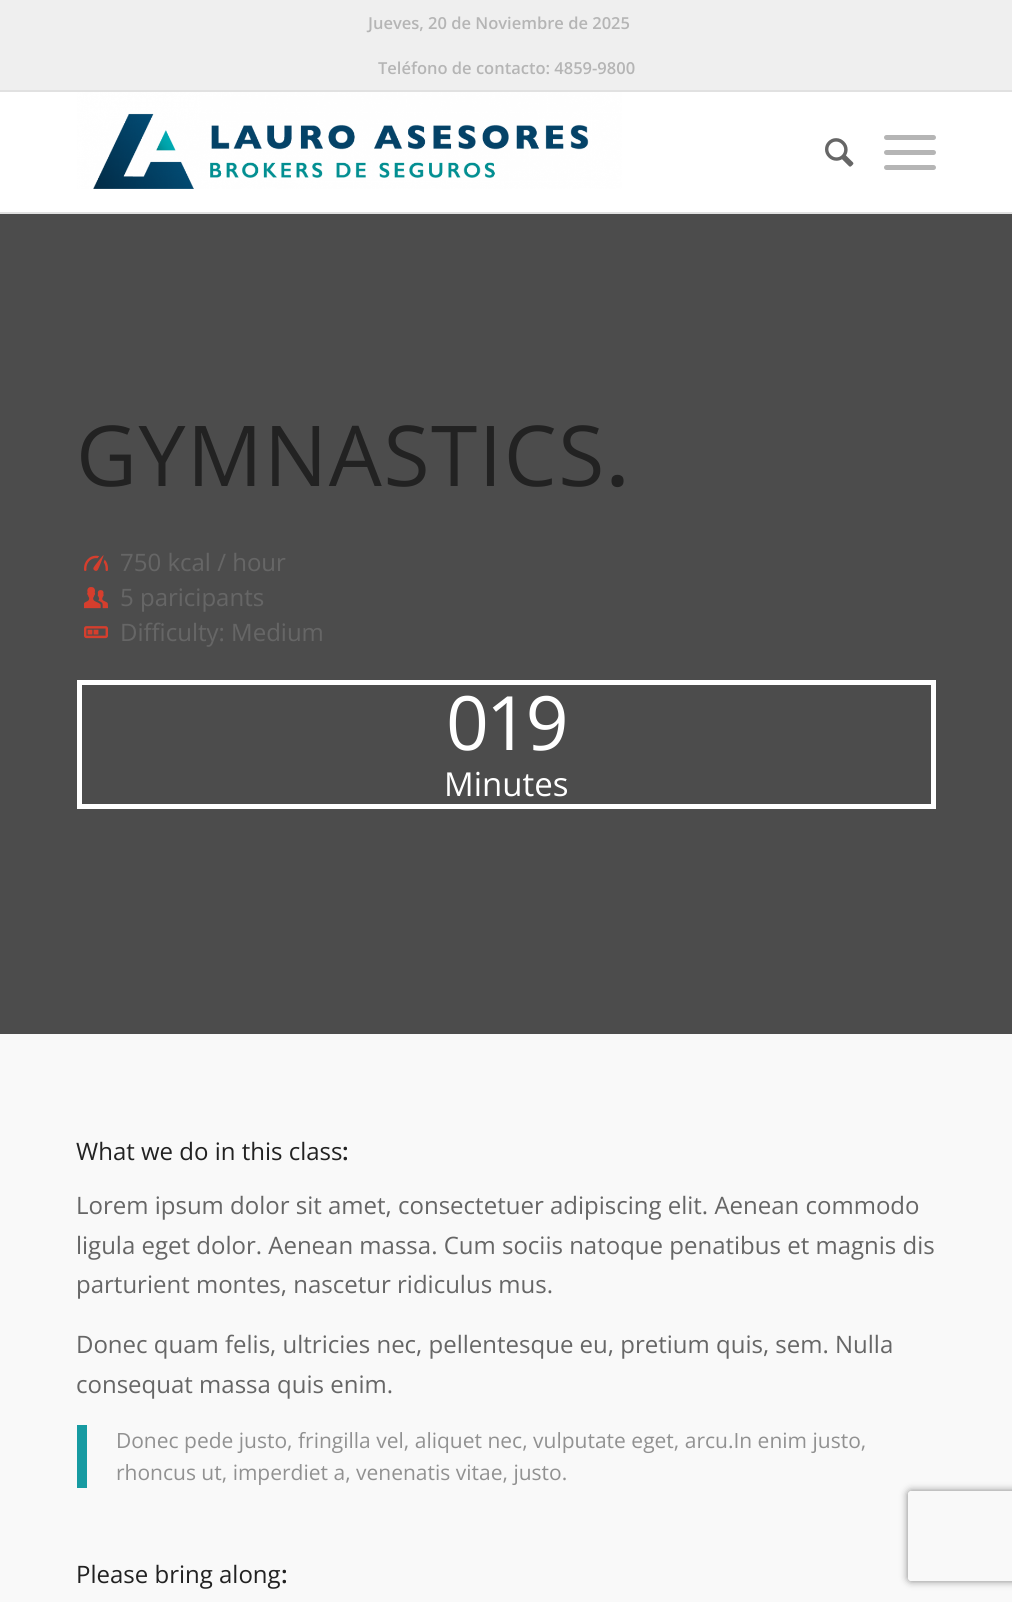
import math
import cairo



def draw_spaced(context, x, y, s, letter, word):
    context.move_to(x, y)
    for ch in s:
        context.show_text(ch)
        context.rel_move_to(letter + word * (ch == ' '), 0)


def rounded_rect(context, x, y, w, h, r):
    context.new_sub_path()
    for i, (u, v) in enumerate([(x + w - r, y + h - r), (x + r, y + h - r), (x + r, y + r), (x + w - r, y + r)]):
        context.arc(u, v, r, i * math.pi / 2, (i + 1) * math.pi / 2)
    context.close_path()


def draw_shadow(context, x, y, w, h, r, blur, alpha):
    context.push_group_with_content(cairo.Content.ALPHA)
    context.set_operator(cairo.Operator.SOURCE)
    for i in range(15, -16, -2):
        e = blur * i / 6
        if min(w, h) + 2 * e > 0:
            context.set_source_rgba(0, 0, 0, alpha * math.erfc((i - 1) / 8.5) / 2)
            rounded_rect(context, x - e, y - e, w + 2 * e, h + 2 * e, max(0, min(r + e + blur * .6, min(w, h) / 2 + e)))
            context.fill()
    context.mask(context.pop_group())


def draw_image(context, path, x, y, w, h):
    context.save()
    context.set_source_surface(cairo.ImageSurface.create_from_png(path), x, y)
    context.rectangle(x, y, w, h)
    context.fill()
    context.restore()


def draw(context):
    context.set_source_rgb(249 / 255, 249 / 255, 249 / 255)
    context.paint()
    context.set_source_rgb(239 / 255, 239 / 255, 239 / 255)
    context.rectangle(0, 0, 1012, 90)
    context.fill()
    context.set_source_rgb(225 / 255, 225 / 255, 225 / 255)
    context.rectangle(0, 90, 1012, 2)
    context.fill()
    context.set_source_rgb(1, 1, 1)
    context.rectangle(0, 92, 1012, 120)
    context.fill()
    context.set_source_rgb(225 / 255, 225 / 255, 225 / 255)
    context.rectangle(0, 212, 1012, 2)
    context.fill()
    draw_image(context, "images/1.png", 77, 92, 545, 97)
    draw_image(context, "images/2.png", 825, 138, 29, 29)
    context.set_source_rgb(181 / 255, 181 / 255, 181 / 255)
    rounded_rect(context, 884, 150, 52, 5, 2.5)
    context.fill()
    rounded_rect(context, 884, 135, 52, 5, 2.5)
    context.fill()
    rounded_rect(context, 884, 165, 52, 5, 2.5)
    context.fill()
    context.set_source_rgb(76 / 255, 76 / 255, 76 / 255)
    context.rectangle(0, 214, 1012, 820)
    context.fill()
    draw_image(context, "images/3.png", 84, 555, 24, 16)
    draw_image(context, "images/4.png", 84, 587, 24, 22)
    draw_image(context, "images/5.png", 84, 626, 24, 13)
    context.rectangle(79.5, 682.5, 854, 124)
    context.set_source_rgb(1, 1, 1)
    context.set_line_width(5)
    context.stroke()
    context.set_source_rgb(23 / 255, 155 / 255, 162 / 255)
    context.rectangle(77, 1425, 10, 63)
    context.fill()
    context.save()
    context.set_fill_rule(cairo.FillRule.EVEN_ODD)
    context.new_path()
    context.move_to(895, 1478)
    context.line_to(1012, 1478)
    context.line_to(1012, 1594)
    context.line_to(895, 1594)
    context.close_path()
    context.move_to(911, 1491)
    context.line_to(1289, 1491)
    context.curve_to(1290.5, 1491, 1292, 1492.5, 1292, 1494)
    context.line_to(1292, 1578)
    context.curve_to(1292, 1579.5, 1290.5, 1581, 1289, 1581)
    context.line_to(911, 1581)
    context.curve_to(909.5, 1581, 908, 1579.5, 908, 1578)
    context.line_to(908, 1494)
    context.curve_to(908, 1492.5, 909.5, 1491, 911, 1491)
    context.close_path()
    context.clip()
    context.set_source_rgb(128 / 255, 128 / 255, 128 / 255)
    draw_shadow(context, 908, 1491, 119, 90, 3, 4, 1)
    context.restore()
    context.select_font_face("Open Sans SemiBold")
    context.set_font_size(16.5)
    context.set_source_rgb(181 / 255, 181 / 255, 181 / 255)
    context.move_to(368, 29)
    context.show_text("Jueves, 20 de Noviembre de 2025")
    context.move_to(378, 74)
    context.show_text("Teléfono de contacto: 4859-9800")
    context.select_font_face("Open Sans")
    context.set_font_size(84)
    context.set_source_rgb(34 / 255, 34 / 255, 34 / 255)
    draw_spaced(context, 76, 486, "GYMNASTICS", 1.5, 0)
    context.select_font_face("Open Sans SemiBold")
    draw_spaced(context, 606, 486, ".", 1.5, 0)
    context.select_font_face("Open Sans")
    context.set_font_size(24)
    context.set_source_rgb(102 / 255, 102 / 255, 102 / 255)
    context.move_to(120, 571)
    context.show_text("750 kcal / hour")
    context.move_to(120, 606)
    context.show_text("5 paricipants")
    context.move_to(120, 641)
    context.show_text("Difficulty: Medium")
    context.set_font_size(75)
    context.set_source_rgb(1, 1, 1)
    draw_spaced(context, 446, 750, "019", -3, 0)
    context.set_font_size(33)
    context.move_to(444, 796)
    context.show_text("Minutes")
    context.set_font_size(24)
    context.set_source_rgb(34 / 255, 34 / 255, 34 / 255)
    context.move_to(76, 1160)
    context.show_text("What we do in this class")
    context.select_font_face("Open Sans SemiBold")
    context.move_to(342, 1160)
    context.show_text(":")
    context.select_font_face("Open Sans")
    context.set_source_rgb(102 / 255, 102 / 255, 102 / 255)
    context.move_to(76, 1214)
    context.show_text("Lorem ipsum dolor sit amet, consectetuer adipiscing elit. Aenean commodo")
    context.move_to(76, 1254)
    context.show_text("ligula eget dolor. Aenean massa. Cum sociis natoque penatibus et magnis dis")
    context.move_to(76, 1293)
    context.show_text("parturient montes, nascetur ridiculus mus.")
    context.move_to(76, 1353)
    context.show_text("Donec quam felis, ultricies nec, pellentesque eu, pretium quis, sem. Nulla")
    context.move_to(76, 1393)
    context.show_text("consequat massa quis enim.")
    context.set_font_size(21)
    context.set_source_rgb(145 / 255, 145 / 255, 145 / 255)
    context.move_to(116, 1448)
    context.show_text("Donec pede justo, fringilla vel, aliquet nec, vulputate eget, arcu.In enim justo,")
    context.move_to(116, 1480)
    context.show_text("rhoncus ut, imperdiet a, venenatis vitae, justo.")
    context.set_font_size(24)
    context.set_source_rgb(34 / 255, 34 / 255, 34 / 255)
    context.move_to(76, 1583)
    context.show_text("Please bring along")
    context.select_font_face("Open Sans SemiBold")
    context.move_to(281, 1583)
    context.show_text(":")


surface = cairo.ImageSurface(cairo.Format.RGB24, 1012, 1602)
context = cairo.Context(surface)
options = cairo.FontOptions()
options.set_hint_metrics(cairo.HintMetrics.OFF)
options.set_hint_style(cairo.HintStyle.NONE)
context.set_font_options(options)
context.set_miter_limit(4)
draw(context)
surface.write_to_png("out.png")
